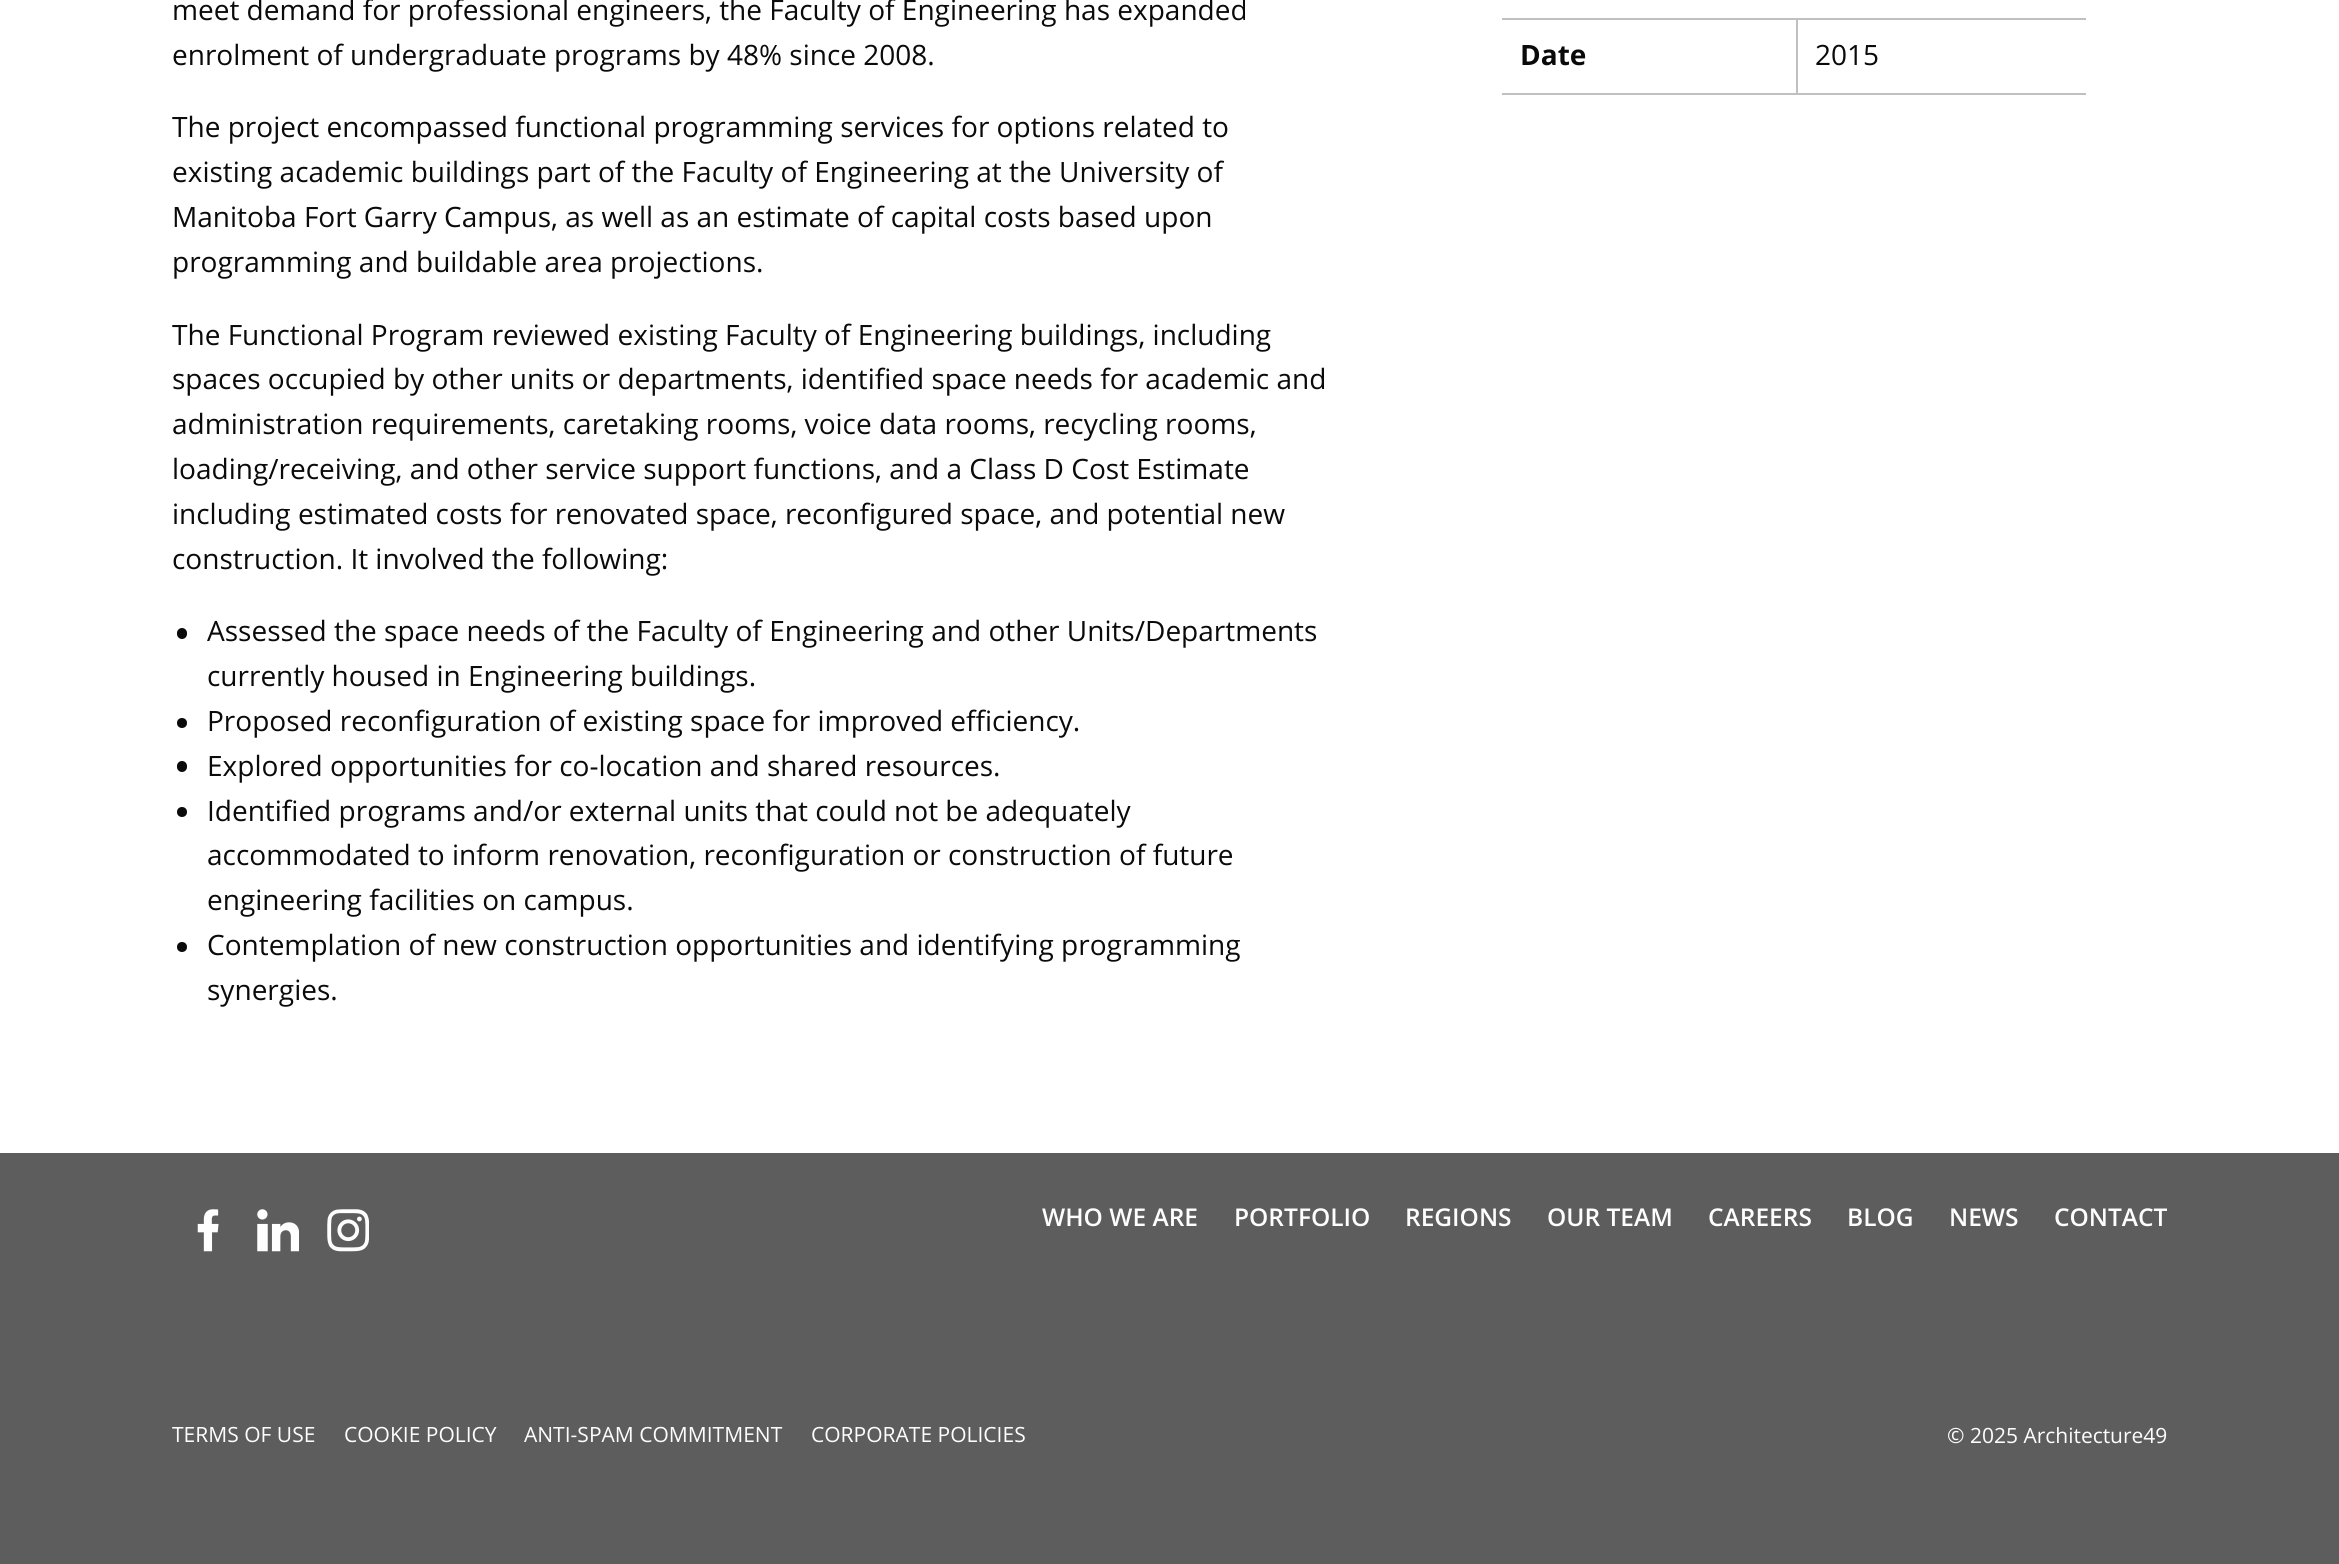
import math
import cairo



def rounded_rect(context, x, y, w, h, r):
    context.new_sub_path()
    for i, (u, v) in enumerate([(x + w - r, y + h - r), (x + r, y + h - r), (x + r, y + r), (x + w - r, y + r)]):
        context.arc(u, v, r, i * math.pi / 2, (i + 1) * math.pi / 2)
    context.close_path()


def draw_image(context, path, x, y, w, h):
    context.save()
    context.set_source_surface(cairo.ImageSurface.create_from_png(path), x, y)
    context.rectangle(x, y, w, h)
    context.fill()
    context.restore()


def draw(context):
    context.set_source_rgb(1, 1, 1)
    context.paint()
    context.set_source_rgb(10 / 255, 10 / 255, 10 / 255)
    rounded_rect(context, 177, 628, 10, 11, 5)
    context.fill()
    context.arc(182, 723, 5, 0, 2 * math.pi)
    context.fill()
    rounded_rect(context, 177, 761, 10, 11, 5)
    context.fill()
    context.arc(182, 812, 5, 0, 2 * math.pi)
    context.fill()
    context.arc(182, 947, 5, 0, 2 * math.pi)
    context.fill()
    context.set_source_rgb(192 / 255, 192 / 255, 192 / 255)
    context.rectangle(1502, 93, 584, 2)
    context.fill()
    context.rectangle(1796, 18, 290, 2)
    context.fill()
    context.rectangle(1796, 18, 2, 77)
    context.fill()
    context.rectangle(1502, 18, 295, 2)
    context.fill()
    context.set_source_rgb(93 / 255, 93 / 255, 93 / 255)
    context.rectangle(0, 1153, 2339, 411)
    context.fill()
    draw_image(context, "images/1.png", 197, 1209, 22, 43)
    draw_image(context, "images/2.png", 257, 1209, 42, 43)
    draw_image(context, "images/3.png", 327, 1209, 42, 43)
    context.select_font_face("Open Sans")
    context.set_font_size(28)
    context.set_source_rgb(10 / 255, 10 / 255, 10 / 255)
    context.move_to(172, 20)
    context.show_text("meet demand for professional engineers, the Faculty of Engineering has expanded")
    context.move_to(172, 65)
    context.show_text("enrolment of undergraduate programs by 48% since 2008.")
    context.move_to(172, 137)
    context.show_text("The project encompassed functional programming services for options related to")
    context.move_to(172, 182)
    context.show_text("existing academic buildings part of the Faculty of Engineering at the University of")
    context.move_to(172, 227)
    context.show_text("Manitoba Fort Garry Campus, as well as an estimate of capital costs based upon")
    context.move_to(172, 272)
    context.show_text("programming and buildable area projections.")
    context.move_to(172, 345)
    context.show_text("The Functional Program reviewed existing Faculty of Engineering buildings, including")
    context.move_to(172, 389)
    context.show_text("spaces occupied by other units or departments, identified space needs for academic and")
    context.move_to(172, 434)
    context.show_text("administration requirements, caretaking rooms, voice data rooms, recycling rooms,")
    context.move_to(172, 479)
    context.show_text("loading/receiving, and other service support functions, and a Class D Cost Estimate")
    context.move_to(172, 524)
    context.show_text("including estimated costs for renovated space, reconfigured space, and potential new")
    context.move_to(172, 569)
    context.show_text("construction. It involved the following:")
    context.move_to(207, 641)
    context.show_text("Assessed the space needs of the Faculty of Engineering and other Units/Departments")
    context.move_to(207, 686)
    context.show_text("currently housed in Engineering buildings.")
    context.move_to(207, 731)
    context.show_text("Proposed reconfiguration of existing space for improved efficiency.")
    context.move_to(207, 776)
    context.show_text("Explored opportunities for co-location and shared resources.")
    context.move_to(207, 821)
    context.show_text("Identified programs and/or external units that could not be adequately")
    context.move_to(207, 865)
    context.show_text("accommodated to inform renovation, reconfiguration or construction of future")
    context.move_to(207, 910)
    context.show_text("engineering facilities on campus.")
    context.move_to(207, 955)
    context.show_text("Contemplation of new construction opportunities and identifying programming")
    context.move_to(207, 1000)
    context.show_text("synergies.")
    context.select_font_face("Open Sans", cairo.FontSlant.NORMAL, cairo.FontWeight.BOLD)
    context.move_to(1520, 65)
    context.show_text("Date")
    context.select_font_face("Open Sans")
    context.move_to(1815, 65)
    context.show_text("2015")
    context.select_font_face("Open Sans SemiBold")
    context.set_font_size(24.5)
    context.set_source_rgb(254 / 255, 254 / 255, 254 / 255)
    context.move_to(1042, 1226)
    context.show_text("WHO WE ARE")
    context.move_to(1234, 1226)
    context.show_text("PORTFOLIO")
    context.move_to(1405, 1226)
    context.show_text("REGIONS")
    context.move_to(1547, 1226)
    context.show_text("OUR TEAM")
    context.move_to(1708, 1226)
    context.show_text("CAREERS")
    context.move_to(1847, 1226)
    context.show_text("BLOG")
    context.move_to(1949, 1226)
    context.show_text("NEWS")
    context.move_to(2054, 1226)
    context.show_text("CONTACT")
    context.select_font_face("Open Sans")
    context.set_font_size(21)
    context.move_to(172, 1442)
    context.show_text("TERMS OF USE")
    context.move_to(344, 1442)
    context.show_text("COOKIE POLICY")
    context.move_to(524, 1442)
    context.show_text("ANTI-SPAM COMMITMENT")
    context.move_to(811, 1442)
    context.show_text("CORPORATE POLICIES")
    context.move_to(1947, 1443)
    context.show_text("© 2025 Architecture49")


surface = cairo.ImageSurface(cairo.Format.RGB24, 2339, 1564)
context = cairo.Context(surface)
options = cairo.FontOptions()
options.set_hint_metrics(cairo.HintMetrics.OFF)
options.set_hint_style(cairo.HintStyle.NONE)
context.set_font_options(options)
context.set_miter_limit(4)
draw(context)
surface.write_to_png("out.png")
